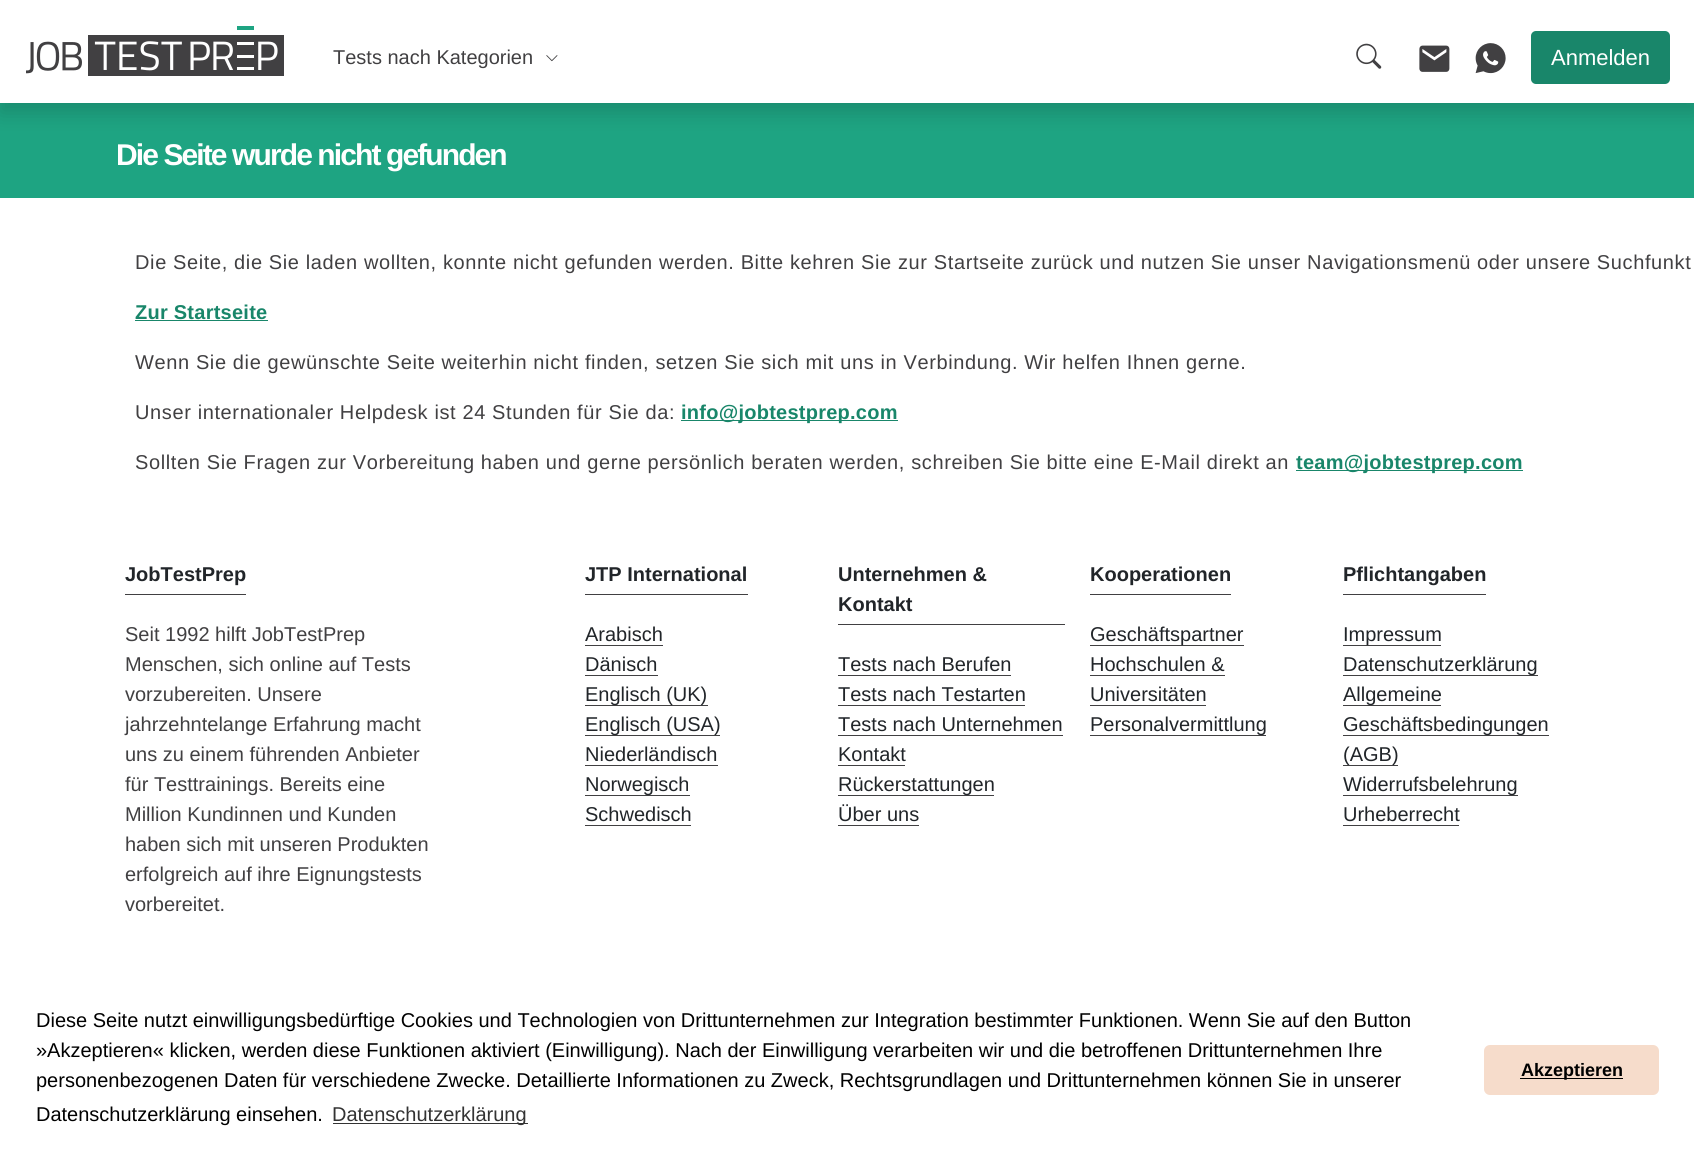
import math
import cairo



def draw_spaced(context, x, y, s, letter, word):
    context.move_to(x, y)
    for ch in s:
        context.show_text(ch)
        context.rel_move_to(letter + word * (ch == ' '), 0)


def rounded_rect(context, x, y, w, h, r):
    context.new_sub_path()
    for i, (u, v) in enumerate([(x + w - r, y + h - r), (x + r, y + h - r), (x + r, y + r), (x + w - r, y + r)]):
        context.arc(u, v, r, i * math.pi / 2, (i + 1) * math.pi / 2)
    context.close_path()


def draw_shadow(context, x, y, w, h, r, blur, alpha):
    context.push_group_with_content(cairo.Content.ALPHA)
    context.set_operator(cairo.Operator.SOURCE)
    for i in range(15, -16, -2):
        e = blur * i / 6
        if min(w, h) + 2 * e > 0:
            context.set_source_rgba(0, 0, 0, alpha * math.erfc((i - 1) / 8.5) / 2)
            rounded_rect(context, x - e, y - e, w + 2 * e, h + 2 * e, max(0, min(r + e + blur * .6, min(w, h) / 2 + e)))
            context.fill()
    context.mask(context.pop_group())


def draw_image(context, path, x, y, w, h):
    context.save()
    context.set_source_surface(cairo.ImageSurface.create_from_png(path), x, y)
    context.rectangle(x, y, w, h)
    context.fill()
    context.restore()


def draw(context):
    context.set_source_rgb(1, 1, 1)
    context.paint()
    context.set_source_rgb(30 / 255, 164 / 255, 130 / 255)
    context.rectangle(0, 103, 1694, 95)
    context.fill()
    context.save()
    context.set_fill_rule(cairo.FillRule.EVEN_ODD)
    context.new_path()
    context.move_to(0, 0)
    context.line_to(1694, 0)
    context.line_to(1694, 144)
    context.line_to(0, 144)
    context.close_path()
    context.move_to(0, 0)
    context.line_to(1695, 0)
    context.line_to(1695, 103)
    context.line_to(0, 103)
    context.close_path()
    context.clip()
    context.set_source_rgb(0, 0, 0)
    draw_shadow(context, 0, 10, 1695, 103, 0, 10, 0.15)
    context.restore()
    draw_image(context, "images/1.png", 26, 26, 258, 50)
    context.set_source_rgb(1, 1, 1)
    context.rectangle(298, 102, 1396, 1)
    context.fill()
    draw_image(context, "images/2.png", 546, 55, 12, 7)
    draw_image(context, "images/3.png", 1356, 43, 26, 26)
    draw_image(context, "images/4.png", 1419, 45, 31, 27)
    draw_image(context, "images/5.png", 1475, 43, 31, 31)
    context.set_source_rgb(25 / 255, 134 / 255, 106 / 255)
    rounded_rect(context, 1531, 31, 139, 53, 5)
    context.fill()
    context.rectangle(135, 320, 133, 1)
    context.fill()
    context.rectangle(681, 420, 217, 1)
    context.fill()
    context.rectangle(1296, 470, 227, 1)
    context.fill()
    context.set_source_rgb(65 / 255, 64 / 255, 66 / 255)
    context.rectangle(125, 594, 121, 1)
    context.fill()
    context.rectangle(585, 594, 163, 1)
    context.fill()
    context.rectangle(585, 645, 78, 1)
    context.fill()
    context.rectangle(585, 675, 73, 1)
    context.fill()
    context.rectangle(585, 705, 123, 1)
    context.fill()
    context.rectangle(585, 735, 135, 1)
    context.fill()
    context.rectangle(585, 765, 133, 1)
    context.fill()
    context.rectangle(585, 795, 105, 1)
    context.fill()
    context.rectangle(585, 825, 106, 1)
    context.fill()
    context.rectangle(838, 624, 227, 1)
    context.fill()
    context.rectangle(838, 675, 173, 1)
    context.fill()
    context.rectangle(838, 705, 187, 1)
    context.fill()
    context.rectangle(838, 735, 225, 1)
    context.fill()
    context.rectangle(838, 765, 67, 1)
    context.fill()
    context.rectangle(838, 795, 156, 1)
    context.fill()
    context.rectangle(838, 825, 81, 1)
    context.fill()
    context.rectangle(1090, 594, 141, 1)
    context.fill()
    context.rectangle(1090, 645, 154, 1)
    context.fill()
    context.rectangle(1090, 675, 135, 1)
    context.fill()
    context.rectangle(1090, 705, 116, 1)
    context.fill()
    context.rectangle(1090, 735, 176, 1)
    context.fill()
    context.rectangle(1343, 594, 143, 1)
    context.fill()
    context.rectangle(1343, 645, 98, 1)
    context.fill()
    context.rectangle(1343, 675, 195, 1)
    context.fill()
    context.rectangle(1343, 705, 98, 1)
    context.fill()
    context.rectangle(1343, 735, 206, 1)
    context.fill()
    context.rectangle(1343, 765, 55, 1)
    context.fill()
    context.rectangle(1343, 795, 175, 1)
    context.fill()
    context.rectangle(1343, 825, 116, 1)
    context.fill()
    context.set_source_rgb(51 / 255, 51 / 255, 51 / 255)
    context.rectangle(333, 1123, 195, 1)
    context.fill()
    context.set_source_rgb(246 / 255, 220 / 255, 203 / 255)
    rounded_rect(context, 1484, 1045, 175, 50, 6)
    context.fill()
    context.set_source_rgb(0, 0, 0)
    context.rectangle(1520, 1078, 103, 1)
    context.fill()
    context.select_font_face("Liberation Sans")
    context.set_font_size(20)
    context.set_source_rgb(65 / 255, 64 / 255, 66 / 255)
    context.move_to(333, 64)
    context.show_text("Tests nach Kategorien")
    context.set_font_size(22)
    context.set_source_rgb(1, 1, 1)
    context.move_to(1551, 65)
    context.show_text("Anmelden")
    context.select_font_face("Liberation Sans", cairo.FontSlant.NORMAL, cairo.FontWeight.BOLD)
    context.set_font_size(30)
    draw_spaced(context, 116, 165, "Die Seite wurde nicht gefunden", -1.9, 0)
    context.select_font_face("Liberation Sans")
    context.set_font_size(20)
    context.set_source_rgb(65 / 255, 64 / 255, 66 / 255)
    draw_spaced(context, 135, 269, "Die Seite, die Sie laden wollten, konnte nicht gefunden werden. Bitte kehren Sie zur Startseite zurück und nutzen Sie unser Navigationsmenü oder unsere Suchfunkt", 0.62, 0)
    context.select_font_face("Liberation Sans", cairo.FontSlant.NORMAL, cairo.FontWeight.BOLD)
    context.set_source_rgb(25 / 255, 134 / 255, 106 / 255)
    draw_spaced(context, 135, 319, "Zur Startseite", 0.25, 0)
    context.select_font_face("Liberation Sans")
    context.set_source_rgb(65 / 255, 64 / 255, 66 / 255)
    draw_spaced(context, 135, 369, "Wenn Sie die gewünschte Seite weiterhin nicht finden, setzen Sie sich mit uns in Verbindung. Wir helfen Ihnen gerne.", 0.62, 0)
    draw_spaced(context, 135, 419, "Unser internationaler Helpdesk ist 24 Stunden für Sie da:", 0.62, 0)
    context.select_font_face("Liberation Sans", cairo.FontSlant.NORMAL, cairo.FontWeight.BOLD)
    context.set_source_rgb(25 / 255, 134 / 255, 106 / 255)
    draw_spaced(context, 681, 419, "info@jobtestprep.com", 0.25, 0)
    context.select_font_face("Liberation Sans")
    context.set_source_rgb(65 / 255, 64 / 255, 66 / 255)
    draw_spaced(context, 135, 469, "Sollten Sie Fragen zur Vorbereitung haben und gerne persönlich beraten werden, schreiben Sie bitte eine E-Mail direkt an", 0.62, 0)
    context.select_font_face("Liberation Sans", cairo.FontSlant.NORMAL, cairo.FontWeight.BOLD)
    context.set_source_rgb(25 / 255, 134 / 255, 106 / 255)
    draw_spaced(context, 1296, 469, "team@jobtestprep.com", 0.25, 0)
    context.set_source_rgb(33 / 255, 37 / 255, 41 / 255)
    context.move_to(125, 581)
    context.show_text("JobTestPrep")
    context.select_font_face("Liberation Sans")
    context.set_source_rgb(65 / 255, 64 / 255, 66 / 255)
    context.move_to(125, 641)
    context.show_text("Seit 1992 hilft JobTestPrep")
    context.move_to(125, 671)
    context.show_text("Menschen, sich online auf Tests")
    context.move_to(125, 701)
    context.show_text("vorzubereiten. Unsere")
    context.move_to(125, 731)
    context.show_text("jahrzehntelange Erfahrung macht")
    context.move_to(125, 761)
    context.show_text("uns zu einem führenden Anbieter")
    context.move_to(125, 791)
    context.show_text("für Testtrainings. Bereits eine")
    context.move_to(125, 821)
    context.show_text("Million Kundinnen und Kunden")
    context.move_to(125, 851)
    context.show_text("haben sich mit unseren Produkten")
    context.move_to(125, 881)
    context.show_text("erfolgreich auf ihre Eignungstests")
    context.move_to(125, 911)
    context.show_text("vorbereitet.")
    context.select_font_face("Liberation Sans", cairo.FontSlant.NORMAL, cairo.FontWeight.BOLD)
    context.set_source_rgb(33 / 255, 37 / 255, 41 / 255)
    context.move_to(585, 581)
    context.show_text("JTP International")
    context.select_font_face("Liberation Sans")
    context.move_to(585, 641)
    context.show_text("Arabisch")
    context.move_to(585, 671)
    context.show_text("Dänisch")
    context.move_to(585, 701)
    context.show_text("Englisch (UK)")
    context.move_to(585, 731)
    context.show_text("Englisch (USA)")
    context.move_to(585, 761)
    context.show_text("Niederländisch")
    context.move_to(585, 791)
    context.show_text("Norwegisch")
    context.move_to(585, 821)
    context.show_text("Schwedisch")
    context.select_font_face("Liberation Sans", cairo.FontSlant.NORMAL, cairo.FontWeight.BOLD)
    context.move_to(838, 581)
    context.show_text("Unternehmen &")
    context.move_to(838, 611)
    context.show_text("Kontakt")
    context.select_font_face("Liberation Sans")
    context.move_to(838, 671)
    context.show_text("Tests nach Berufen")
    context.move_to(838, 701)
    context.show_text("Tests nach Testarten")
    context.move_to(838, 731)
    context.show_text("Tests nach Unternehmen")
    context.move_to(838, 761)
    context.show_text("Kontakt")
    context.move_to(838, 791)
    context.show_text("Rückerstattungen")
    context.move_to(838, 821)
    context.show_text("Über uns")
    context.select_font_face("Liberation Sans", cairo.FontSlant.NORMAL, cairo.FontWeight.BOLD)
    context.move_to(1090, 581)
    context.show_text("Kooperationen")
    context.select_font_face("Liberation Sans")
    context.move_to(1090, 641)
    context.show_text("Geschäftspartner")
    context.move_to(1090, 671)
    context.show_text("Hochschulen &")
    context.move_to(1090, 701)
    context.show_text("Universitäten")
    context.move_to(1090, 731)
    context.show_text("Personalvermittlung")
    context.select_font_face("Liberation Sans", cairo.FontSlant.NORMAL, cairo.FontWeight.BOLD)
    context.move_to(1343, 581)
    context.show_text("Pflichtangaben")
    context.select_font_face("Liberation Sans")
    context.move_to(1343, 641)
    context.show_text("Impressum")
    context.move_to(1343, 671)
    context.show_text("Datenschutzerklärung")
    context.move_to(1343, 701)
    context.show_text("Allgemeine")
    context.move_to(1343, 731)
    context.show_text("Geschäftsbedingungen")
    context.move_to(1343, 761)
    context.show_text("(AGB)")
    context.move_to(1343, 791)
    context.show_text("Widerrufsbelehrung")
    context.move_to(1343, 821)
    context.show_text("Urheberrecht")
    context.set_source_rgb(0, 0, 0)
    context.move_to(36, 1027)
    context.show_text("Diese Seite nutzt einwilligungsbedürftige Cookies und Technologien von Drittunternehmen zur Integration bestimmter Funktionen. Wenn Sie auf den Button")
    context.move_to(36, 1057)
    context.show_text("»Akzeptieren« klicken, werden diese Funktionen aktiviert (Einwilligung). Nach der Einwilligung verarbeiten wir und die betroffenen Drittunternehmen Ihre")
    context.move_to(36, 1087)
    context.show_text("personenbezogenen Daten für verschiedene Zwecke. Detaillierte Informationen zu Zweck, Rechtsgrundlagen und Drittunternehmen können Sie in unserer")
    context.move_to(36, 1121)
    context.show_text("Datenschutzerklärung einsehen.")
    context.set_source_rgb(51 / 255, 51 / 255, 51 / 255)
    context.move_to(332, 1121)
    context.show_text("Datenschutzerklärung")
    context.select_font_face("Liberation Sans", cairo.FontSlant.NORMAL, cairo.FontWeight.BOLD)
    context.set_font_size(18)
    context.set_source_rgb(0, 0, 0)
    context.move_to(1521, 1076)
    context.show_text("Akzeptieren")


surface = cairo.ImageSurface(cairo.Format.RGB24, 1694, 1153)
context = cairo.Context(surface)
options = cairo.FontOptions()
options.set_hint_metrics(cairo.HintMetrics.OFF)
options.set_hint_style(cairo.HintStyle.NONE)
context.set_font_options(options)
context.set_miter_limit(4)
draw(context)
surface.write_to_png("out.png")
